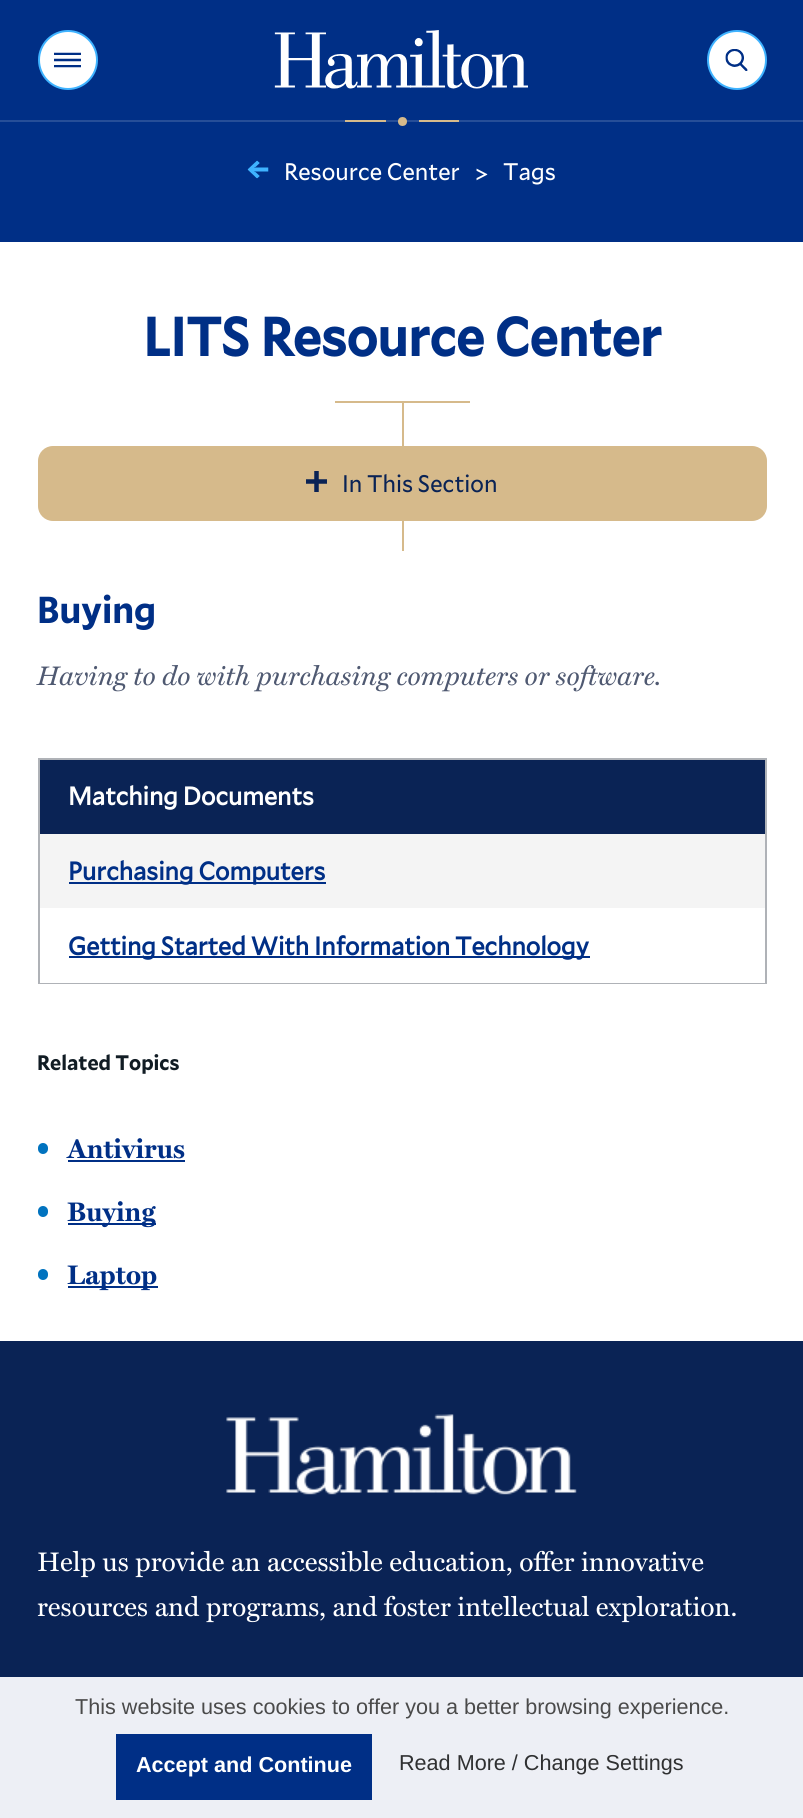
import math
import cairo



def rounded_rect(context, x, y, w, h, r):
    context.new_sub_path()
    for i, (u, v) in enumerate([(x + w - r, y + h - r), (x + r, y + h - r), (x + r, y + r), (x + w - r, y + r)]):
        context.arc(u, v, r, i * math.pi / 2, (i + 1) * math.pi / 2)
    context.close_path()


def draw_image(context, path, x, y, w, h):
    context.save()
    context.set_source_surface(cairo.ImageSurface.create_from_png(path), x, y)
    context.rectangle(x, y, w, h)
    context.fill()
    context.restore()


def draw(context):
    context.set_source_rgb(1, 1, 1)
    context.paint()
    context.set_source_rgb(0, 47 / 255, 134 / 255)
    context.rectangle(0, 0, 803, 120)
    context.fill()
    context.set_source_rgb(38 / 255, 78 / 255, 152 / 255)
    context.rectangle(0, 120, 803, 2)
    context.fill()
    context.set_source_rgb(1, 1, 1)
    context.arc(68, 60, 29, 0, 2 * math.pi)
    context.fill_preserve()
    context.set_source_rgb(63 / 255, 179 / 255, 1)
    context.stroke()
    draw_image(context, "images/1.png", 54, 52, 27, 16)
    context.set_source_rgb(1, 1, 1)
    context.arc(737, 60, 29, 0, 2 * math.pi)
    context.fill_preserve()
    context.set_source_rgb(63 / 255, 179 / 255, 1)
    context.stroke()
    draw_image(context, "images/2.png", 725, 49, 23, 22)
    draw_image(context, "images/3.png", 274, 30, 254, 59)
    context.set_source_rgb(214 / 255, 186 / 255, 139 / 255)
    context.rectangle(345, 120, 41, 2)
    context.fill()
    context.set_source_rgb(0, 47 / 255, 134 / 255)
    context.rectangle(0, 122, 803, 120)
    context.fill()
    context.set_source_rgb(214 / 255, 186 / 255, 139 / 255)
    context.arc(402.5, 121.5, 4.5, 0, 2 * math.pi)
    context.fill()
    context.rectangle(419, 120, 40, 2)
    context.fill()
    draw_image(context, "images/4.png", 247, 160, 22, 19)
    context.rectangle(402, 401, 2, 150)
    context.fill()
    context.rectangle(335, 401, 135, 2)
    context.fill()
    rounded_rect(context, 38, 446, 729, 75, 15)
    context.fill()
    draw_image(context, "images/5.png", 306, 471, 21, 21)
    context.set_source_rgb(175 / 255, 178 / 255, 183 / 255)
    context.rectangle(38, 758, 729, 2)
    context.fill()
    context.rectangle(765, 758, 2, 226)
    context.fill()
    context.rectangle(38, 983, 729, 1)
    context.fill()
    context.rectangle(38, 758, 2, 226)
    context.fill()
    context.set_source_rgb(10 / 255, 35 / 255, 85 / 255)
    context.rectangle(40, 760, 725, 74)
    context.fill()
    context.set_source_rgb(244 / 255, 244 / 255, 244 / 255)
    context.rectangle(40, 834, 725, 74)
    context.fill()
    context.set_source_rgb(0, 47 / 255, 134 / 255)
    context.rectangle(69, 882, 257, 2)
    context.fill()
    context.rectangle(69, 956, 521, 2)
    context.fill()
    context.set_source_rgb(1 / 255, 115 / 255, 191 / 255)
    rounded_rect(context, 38, 1143, 10, 11, 5)
    context.fill()
    context.set_source_rgb(0, 47 / 255, 134 / 255)
    context.rectangle(68, 1160, 117, 2)
    context.fill()
    context.set_source_rgb(1 / 255, 115 / 255, 191 / 255)
    rounded_rect(context, 38, 1206, 10, 11, 5)
    context.fill()
    context.set_source_rgb(0, 47 / 255, 134 / 255)
    context.rectangle(68, 1223, 88, 2)
    context.fill()
    context.set_source_rgb(1 / 255, 115 / 255, 191 / 255)
    rounded_rect(context, 38, 1269, 10, 11, 5)
    context.fill()
    context.set_source_rgb(0, 47 / 255, 134 / 255)
    context.rectangle(68, 1286, 90, 2)
    context.fill()
    context.set_source_rgb(10 / 255, 35 / 255, 85 / 255)
    context.rectangle(0, 1341, 803, 336)
    context.fill()
    draw_image(context, "images/6.png", 226, 1414, 351, 81)
    context.set_source_rgb(237 / 255, 239 / 255, 245 / 255)
    context.rectangle(0, 1677, 803, 141)
    context.fill()
    context.set_source_rgb(0, 47 / 255, 134 / 255)
    context.rectangle(116, 1734, 256, 66)
    context.fill()
    context.select_font_face("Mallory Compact")
    context.set_font_size(24)
    context.set_source_rgb(1, 1, 1)
    context.move_to(284, 180)
    context.show_text("Resource Center")
    context.move_to(475, 183)
    context.show_text(">")
    context.move_to(503, 180)
    context.show_text("Tags")
    context.select_font_face("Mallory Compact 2", cairo.FontSlant.NORMAL, cairo.FontWeight.BOLD)
    context.set_font_size(54)
    context.set_source_rgb(0, 47 / 255, 134 / 255)
    context.move_to(143, 356)
    context.show_text("LITS Resource Center")
    context.select_font_face("Mallory Compact")
    context.set_font_size(24)
    context.set_source_rgb(10 / 255, 35 / 255, 85 / 255)
    context.move_to(342, 492)
    context.show_text("In This Section")
    context.select_font_face("Mallory Compact", cairo.FontSlant.NORMAL, cairo.FontWeight.BOLD)
    context.set_font_size(37.5)
    context.set_source_rgb(0, 47 / 255, 134 / 255)
    context.move_to(37, 623)
    context.show_text("Buying")
    context.select_font_face("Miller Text", cairo.FontSlant.ITALIC)
    context.set_font_size(27)
    context.set_source_rgb(79 / 255, 89 / 255, 113 / 255)
    context.move_to(37, 685)
    context.show_text("Having to do with purchasing computers or software.")
    context.select_font_face("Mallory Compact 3", cairo.FontSlant.NORMAL, cairo.FontWeight.BOLD)
    context.set_font_size(25.5)
    context.set_source_rgb(1, 1, 1)
    context.move_to(68, 805)
    context.show_text("Matching Documents")
    context.set_source_rgb(0, 47 / 255, 134 / 255)
    context.move_to(68, 880)
    context.show_text("Purchasing Computers")
    context.move_to(68, 955)
    context.show_text("Getting Started With Information Technology")
    context.select_font_face("Mallory Compact", cairo.FontSlant.NORMAL, cairo.FontWeight.BOLD)
    context.set_font_size(21)
    context.set_source_rgb(17 / 255, 28 / 255, 36 / 255)
    context.move_to(37, 1070)
    context.show_text("Related Topics")
    context.select_font_face("Miller Text", cairo.FontSlant.NORMAL, cairo.FontWeight.BOLD)
    context.set_font_size(27)
    context.set_source_rgb(0, 47 / 255, 134 / 255)
    context.move_to(67, 1158)
    context.show_text("Antivirus")
    context.move_to(67, 1221)
    context.show_text("Buying")
    context.move_to(67, 1284)
    context.show_text("Laptop")
    context.select_font_face("Miller Text")
    context.set_source_rgb(1, 1, 1)
    context.move_to(37, 1571)
    context.show_text("Help us provide an accessible education, offer innovative")
    context.move_to(37, 1616)
    context.show_text("resources and programs, and foster intellectual exploration.")
    context.select_font_face("Liberation Sans")
    context.set_font_size(21.6)
    context.set_source_rgb(74 / 255, 74 / 255, 74 / 255)
    context.move_to(75, 1714)
    context.show_text("This website uses cookies to offer you a better browsing experience.")
    context.select_font_face("Liberation Sans", cairo.FontSlant.NORMAL, cairo.FontWeight.BOLD)
    context.set_source_rgb(1, 1, 1)
    context.move_to(136, 1772)
    context.show_text("Accept and Continue")
    context.select_font_face("Liberation Sans")
    context.set_source_rgb(47 / 255, 48 / 255, 49 / 255)
    context.move_to(399, 1770)
    context.show_text("Read More / Change Settings")


surface = cairo.ImageSurface(cairo.Format.RGB24, 803, 1818)
context = cairo.Context(surface)
options = cairo.FontOptions()
options.set_hint_metrics(cairo.HintMetrics.OFF)
options.set_hint_style(cairo.HintStyle.NONE)
context.set_font_options(options)
context.set_miter_limit(4)
draw(context)
surface.write_to_png("out.png")
